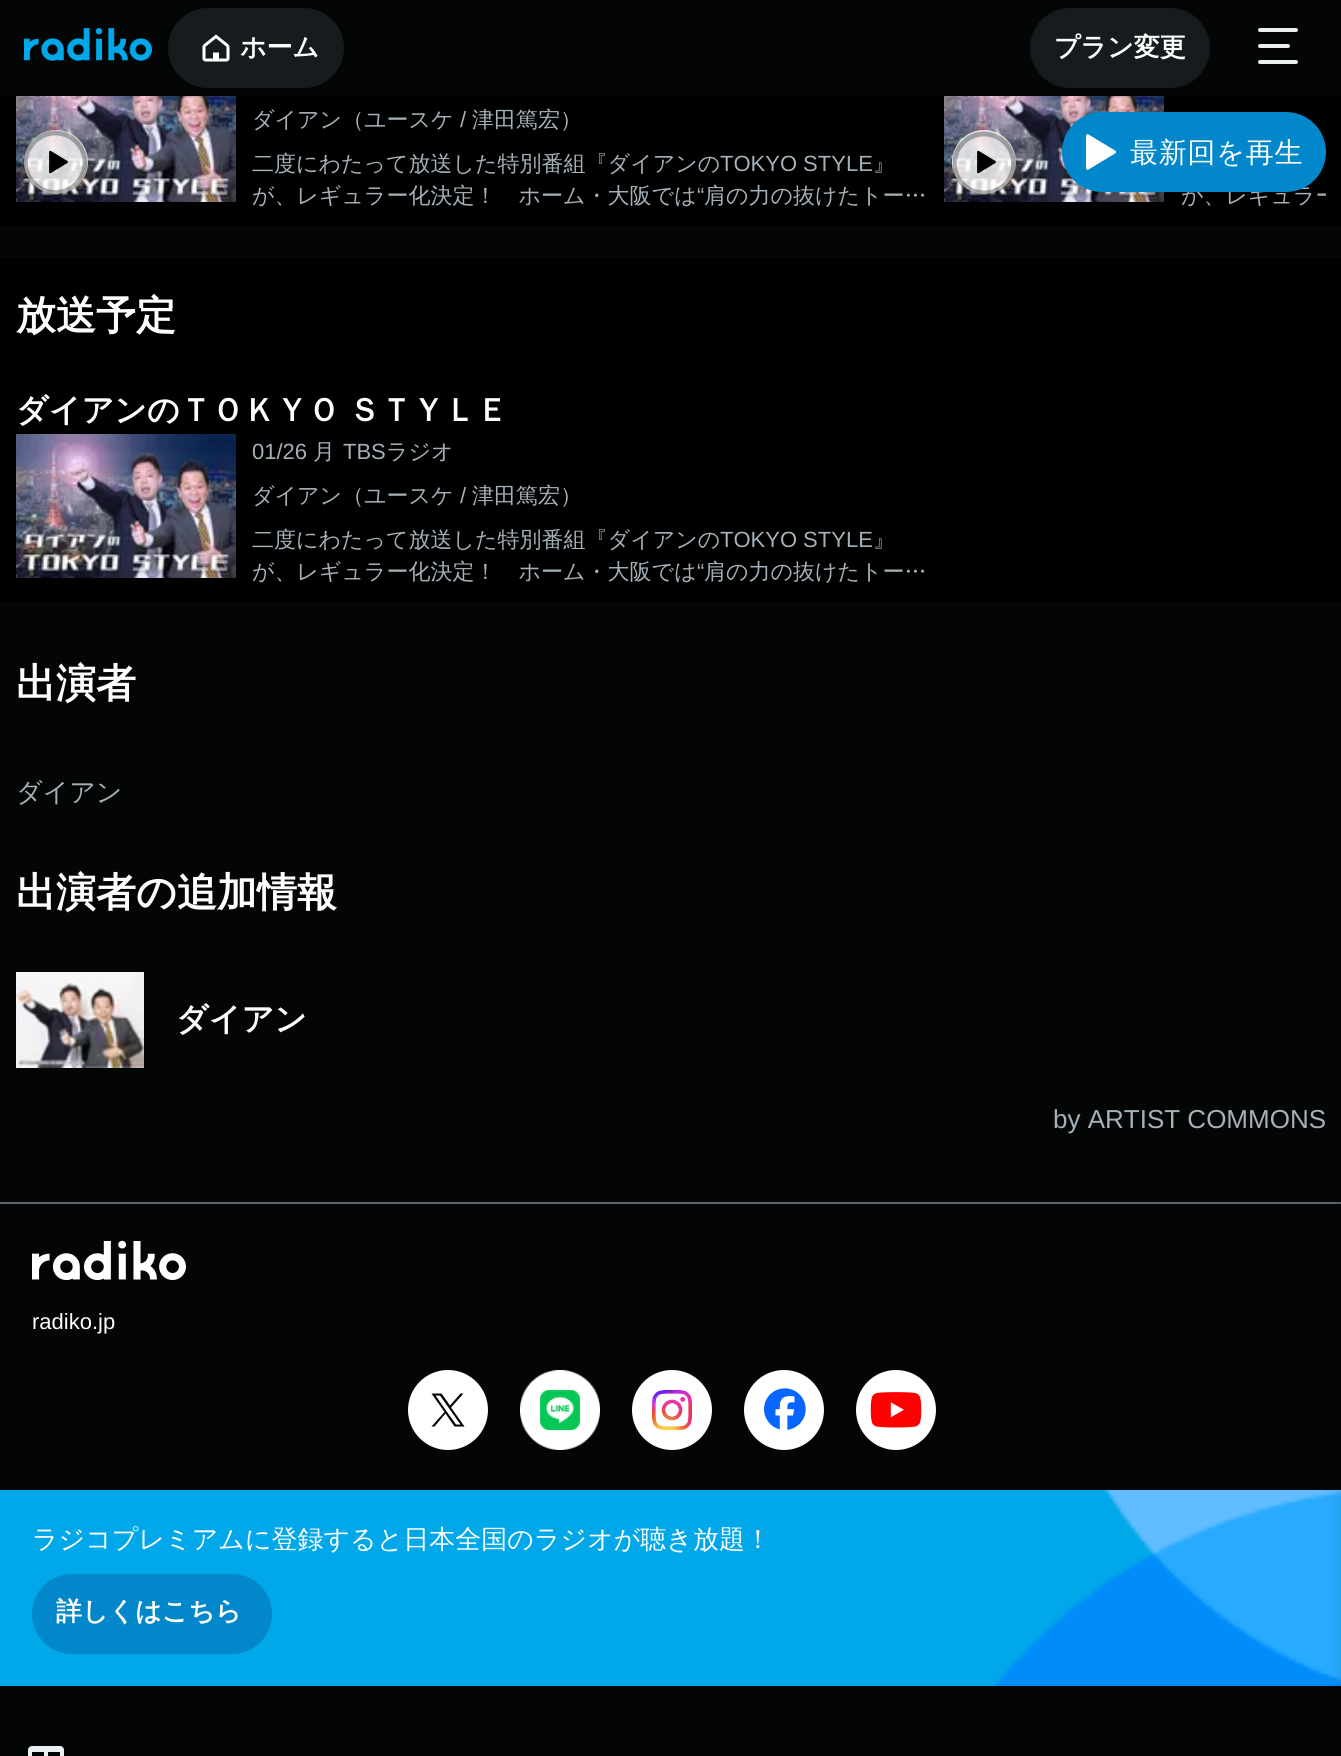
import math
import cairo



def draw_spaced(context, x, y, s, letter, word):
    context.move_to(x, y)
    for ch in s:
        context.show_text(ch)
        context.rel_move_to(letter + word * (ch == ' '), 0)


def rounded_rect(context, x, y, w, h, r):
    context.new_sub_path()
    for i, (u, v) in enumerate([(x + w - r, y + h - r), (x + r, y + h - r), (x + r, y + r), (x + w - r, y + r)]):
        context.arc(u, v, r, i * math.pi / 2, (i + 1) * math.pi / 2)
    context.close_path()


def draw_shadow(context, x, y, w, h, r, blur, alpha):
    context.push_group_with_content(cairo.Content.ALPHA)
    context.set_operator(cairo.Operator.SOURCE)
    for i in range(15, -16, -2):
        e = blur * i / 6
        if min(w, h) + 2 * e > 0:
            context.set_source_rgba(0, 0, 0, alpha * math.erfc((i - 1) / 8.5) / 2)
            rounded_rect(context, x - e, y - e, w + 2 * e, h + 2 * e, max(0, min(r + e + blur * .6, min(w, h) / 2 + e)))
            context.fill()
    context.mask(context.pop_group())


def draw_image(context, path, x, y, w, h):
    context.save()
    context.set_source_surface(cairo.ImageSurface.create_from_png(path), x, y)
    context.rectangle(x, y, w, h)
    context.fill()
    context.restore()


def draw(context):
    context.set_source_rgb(4 / 255, 5 / 255, 5 / 255)
    context.paint()
    draw_image(context, "images/1.png", 24, 28, 128, 33)
    context.set_source_rgb(22 / 255, 27 / 255, 29 / 255)
    rounded_rect(context, 168, 8, 176, 80, 40)
    context.fill()
    draw_image(context, "images/2.png", 202, 34, 28, 28)
    rounded_rect(context, 1030, 8, 180, 80, 40)
    context.fill()
    draw_image(context, "images/3.png", 1258, 28, 40, 36)
    context.set_source_rgb(0, 0, 0)
    context.rectangle(0, 96, 1341, 130)
    context.fill()
    draw_image(context, "images/4.png", 16, 96, 220, 106)
    context.set_source_rgba(252 / 255, 253 / 255, 253 / 255, 0.8)
    context.arc(56, 162, 32, 0, 2 * math.pi)
    context.fill()
    context.save()
    context.new_path()
    context.move_to(24, 194.5)
    context.line_to(24, 130.5)
    context.line_to(88, 130.5)
    context.line_to(88, 194.5)
    context.close_path()
    context.clip()
    context.new_path()
    context.move_to(25.5, 162.5)
    context.curve_to(25.5, 146.5, 39, 133, 55.5, 133)
    context.curve_to(71.5, 133, 85, 146.5, 85, 162.5)
    context.curve_to(85, 179, 71.5, 192.5, 55.5, 192.5)
    context.curve_to(39, 192.5, 25.5, 179, 25.5, 162.5)
    context.close_path()
    context.set_source_rgba(4 / 255, 5 / 255, 5 / 255, 0.3)
    context.set_line_width(4.8)
    context.stroke()
    context.restore()
    draw_image(context, "images/5.png", 49, 150, 19, 24)
    draw_image(context, "images/4.png", 944, 96, 220, 106)
    context.arc(984, 162, 32, 0, 2 * math.pi)
    context.fill()
    context.save()
    context.new_path()
    context.move_to(953, 194.5)
    context.line_to(953, 130.5)
    context.line_to(1017, 130.5)
    context.line_to(1017, 194.5)
    context.close_path()
    context.clip()
    context.new_path()
    context.move_to(954.5, 163.5)
    context.curve_to(954.5, 147, 968, 134, 984, 134)
    context.curve_to(1000.5, 134, 1013.5, 147, 1013.5, 163.5)
    context.curve_to(1013.5, 180, 1000.5, 193, 984, 193)
    context.curve_to(968, 193, 954.5, 180, 954.5, 163.5)
    context.close_path()
    context.set_source_rgba(4 / 255, 5 / 255, 5 / 255, 0.3)
    context.set_line_width(4.8)
    context.stroke()
    context.restore()
    draw_image(context, "images/5.png", 977, 150, 19, 24)
    context.set_source_rgb(0, 0, 0)
    context.rectangle(0, 258, 1341, 344)
    context.fill()
    draw_image(context, "images/6.png", 16, 434, 220, 144)
    draw_image(context, "images/7.png", 16, 972, 128, 96)
    context.set_source_rgb(90 / 255, 102 / 255, 110 / 255)
    context.rectangle(0, 1202, 1341, 2)
    context.fill()
    draw_image(context, "images/8.png", 32, 1240, 154, 41)
    context.set_source_rgb(1, 1, 1)
    context.arc(448, 1410, 40, 0, 2 * math.pi)
    context.fill()
    context.set_source_rgb(0, 0, 0)
    context.new_path()
    context.move_to(451, 1407.5)
    context.line_to(463.5, 1393.5)
    context.line_to(460.5, 1393.5)
    context.line_to(450, 1405.5)
    context.line_to(441.5, 1393.5)
    context.line_to(431.5, 1393.5)
    context.line_to(444.5, 1412)
    context.line_to(431.5, 1426.5)
    context.line_to(434.5, 1426.5)
    context.line_to(445.5, 1413.5)
    context.line_to(454.5, 1426.5)
    context.line_to(464.5, 1426.5)
    context.close_path()
    context.move_to(447, 1412)
    context.line_to(435.5, 1395.5)
    context.line_to(440, 1395.5)
    context.line_to(460.5, 1424.5)
    context.line_to(456, 1424.5)
    context.close_path()
    context.fill()
    draw_image(context, "images/9.png", 520, 1370, 80, 80)
    context.set_source_rgb(1, 1, 1)
    context.arc(672, 1410, 40, 0, 2 * math.pi)
    context.fill()
    draw_image(context, "images/10.png", 652, 1390, 40, 40)
    draw_image(context, "images/11.png", 744, 1370, 80, 80)
    draw_image(context, "images/12.png", 856, 1370, 80, 80)
    draw_image(context, "images/13.png", 0, 1490, 1341, 196)
    context.set_source_rgb(2 / 255, 135 / 255, 202 / 255)
    rounded_rect(context, 32, 1574, 240, 80, 40)
    context.fill()
    draw_image(context, "images/14.png", 28, 1746, 36, 10)
    context.select_font_face("WenQuanYi Zen Hei", cairo.FontSlant.NORMAL, cairo.FontWeight.BOLD)
    context.set_font_size(26)
    context.set_source_rgb(252 / 255, 253 / 255, 253 / 255)
    context.move_to(240, 56)
    context.show_text("ホーム")
    context.move_to(1054, 56)
    context.show_text("プラン変更")
    context.select_font_face("WenQuanYi Zen Hei Medium")
    context.set_font_size(22)
    gradient = cairo.LinearGradient(252, 113, 929, 113)
    gradient.add_color_stop_rgba(0.7, 165 / 255, 177 / 255, 184 / 255, 1)
    gradient.add_color_stop_rgba(1, 0, 0, 0, 1)
    context.set_source(gradient)
    context.move_to(252, 127)
    context.show_text("ダイアン（ユースケ")
    context.select_font_face("Liberation Sans")
    context.move_to(460, 127)
    context.show_text("/")
    context.select_font_face("WenQuanYi Zen Hei Medium")
    context.move_to(472, 127)
    context.show_text("津田篤宏）")
    context.set_source_rgb(165 / 255, 177 / 255, 184 / 255)
    context.move_to(252, 171)
    context.show_text("二度にわたって放送した特別番組『ダイアンの")
    context.select_font_face("Liberation Sans")
    context.move_to(720, 171)
    context.show_text("TOKYO STYLE")
    context.select_font_face("WenQuanYi Zen Hei Medium")
    context.move_to(873, 171)
    context.show_text("』")
    context.move_to(252, 203)
    context.show_text("が、レギュラー化決定！　ホーム・大阪では")
    context.select_font_face("Liberation Sans")
    context.move_to(697, 203)
    context.show_text("“")
    context.select_font_face("WenQuanYi Zen Hei Medium")
    context.move_to(704, 203)
    context.show_text("肩の力の抜けたトー…")
    context.save()
    context.rectangle(1180, 134, 146, 76)
    context.clip()
    context.move_to(1181, 203)
    context.show_text("が、レギュラー")
    context.restore()
    context.set_source_rgb(2 / 255, 135 / 255, 202 / 255)
    rounded_rect(context, 1062, 112, 264, 80, 40)
    context.fill()
    context.set_source_rgb(252 / 255, 253 / 255, 253 / 255)
    context.new_path()
    context.move_to(1115, 153.5)
    context.curve_to(1116.5, 153, 1116.5, 151, 1115, 150.5)
    context.line_to(1088.5, 134.5)
    context.curve_to(1087.5, 133.5, 1086, 134.5, 1086, 136)
    context.line_to(1086, 168)
    context.curve_to(1086, 169.5, 1087.5, 170.5, 1088.5, 169.5)
    context.close_path()
    context.fill()
    context.set_font_size(28)
    draw_spaced(context, 1130, 162, "最新回を再生", 0.75, 0)
    context.select_font_face("WenQuanYi Zen Hei", cairo.FontSlant.NORMAL, cairo.FontWeight.BOLD)
    context.set_font_size(40)
    context.move_to(16, 329)
    context.show_text("放送予定")
    context.set_font_size(32)
    draw_spaced(context, 16, 421, "ダイアンのＴＯＫＹＯ ＳＴＹＬＥ", 0, -1)
    context.select_font_face("Liberation Sans")
    context.set_font_size(22)
    context.set_source_rgb(165 / 255, 177 / 255, 184 / 255)
    context.move_to(252, 459)
    context.show_text("01/26")
    context.select_font_face("WenQuanYi Zen Hei Medium")
    context.move_to(313, 459)
    context.show_text("月")
    context.select_font_face("Liberation Sans")
    context.move_to(343, 459)
    context.show_text("TBS")
    context.select_font_face("WenQuanYi Zen Hei Medium")
    context.move_to(386, 459)
    context.show_text("ラジオ")
    gradient = cairo.LinearGradient(252, 489, 929, 489)
    gradient.add_color_stop_rgba(0.7, 165 / 255, 177 / 255, 184 / 255, 1)
    gradient.add_color_stop_rgba(1, 0, 0, 0, 1)
    context.set_source(gradient)
    context.move_to(252, 503)
    context.show_text("ダイアン（ユースケ")
    context.select_font_face("Liberation Sans")
    context.move_to(460, 503)
    context.show_text("/")
    context.select_font_face("WenQuanYi Zen Hei Medium")
    context.move_to(472, 503)
    context.show_text("津田篤宏）")
    context.set_source_rgb(165 / 255, 177 / 255, 184 / 255)
    context.move_to(252, 547)
    context.show_text("二度にわたって放送した特別番組『ダイアンの")
    context.select_font_face("Liberation Sans")
    context.move_to(720, 547)
    context.show_text("TOKYO STYLE")
    context.select_font_face("WenQuanYi Zen Hei Medium")
    context.move_to(873, 547)
    context.show_text("』")
    context.move_to(252, 579)
    context.show_text("が、レギュラー化決定！　ホーム・大阪では")
    context.select_font_face("Liberation Sans")
    context.move_to(697, 579)
    context.show_text("“")
    context.select_font_face("WenQuanYi Zen Hei Medium")
    context.move_to(704, 579)
    context.show_text("肩の力の抜けたトー…")
    context.select_font_face("WenQuanYi Zen Hei", cairo.FontSlant.NORMAL, cairo.FontWeight.BOLD)
    context.set_font_size(40)
    context.set_source_rgb(252 / 255, 253 / 255, 253 / 255)
    context.move_to(16, 697)
    context.show_text("出演者")
    context.select_font_face("WenQuanYi Zen Hei Medium")
    context.set_font_size(26)
    context.set_source_rgb(165 / 255, 177 / 255, 184 / 255)
    context.move_to(16, 801)
    context.show_text("ダイアン")
    context.select_font_face("WenQuanYi Zen Hei", cairo.FontSlant.NORMAL, cairo.FontWeight.BOLD)
    context.set_font_size(40)
    context.set_source_rgb(252 / 255, 253 / 255, 253 / 255)
    context.move_to(16, 906)
    context.show_text("出演者の追加情報")
    context.set_font_size(32)
    context.move_to(176, 1030)
    context.show_text("ダイアン")
    context.select_font_face("Liberation Sans")
    context.set_font_size(26)
    context.set_source_rgb(165 / 255, 177 / 255, 184 / 255)
    context.move_to(1053, 1128)
    context.show_text("by ARTIST COMMONS")
    context.set_font_size(22)
    context.set_source_rgb(252 / 255, 253 / 255, 253 / 255)
    context.move_to(32, 1329)
    context.show_text("radiko.jp")
    context.select_font_face("WenQuanYi Zen Hei Medium")
    context.set_font_size(26)
    context.move_to(32, 1548)
    context.show_text("ラジコプレミアムに登録すると日本全国のラジオが聴き放題！")
    context.select_font_face("WenQuanYi Zen Hei", cairo.FontSlant.NORMAL, cairo.FontWeight.BOLD)
    context.move_to(56, 1620)
    context.show_text("詳しくはこちら")
    context.set_source_rgb(0, 0, 0)
    draw_shadow(context, 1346, 0, 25, 1756, 0, 10, 0.2)


surface = cairo.ImageSurface(cairo.Format.RGB24, 1341, 1756)
context = cairo.Context(surface)
options = cairo.FontOptions()
options.set_hint_metrics(cairo.HintMetrics.OFF)
options.set_hint_style(cairo.HintStyle.NONE)
context.set_font_options(options)
context.set_miter_limit(4)
draw(context)
surface.write_to_png("out.png")
